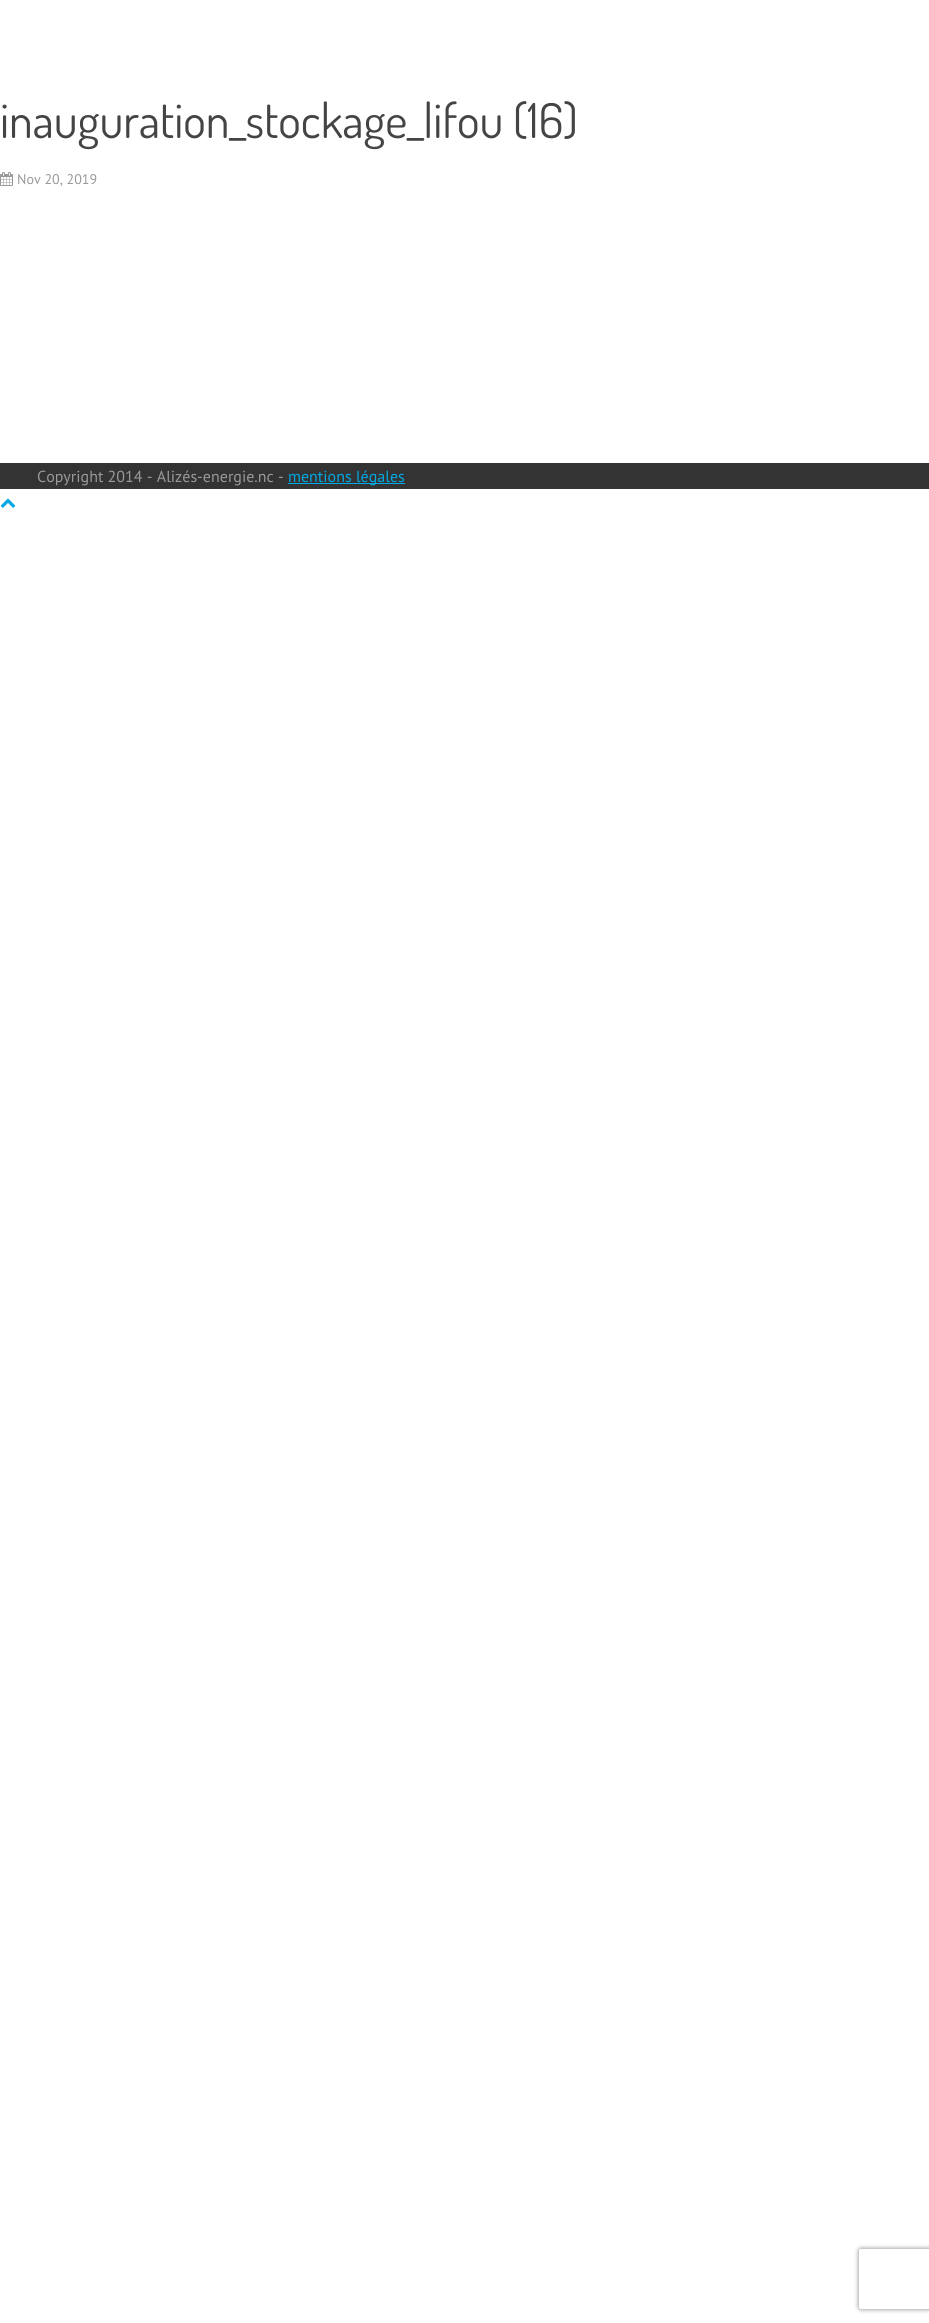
import math
import cairo



def rounded_rect(context, x, y, w, h, r):
    context.new_sub_path()
    for i, (u, v) in enumerate([(x + w - r, y + h - r), (x + r, y + h - r), (x + r, y + r), (x + w - r, y + r)]):
        context.arc(u, v, r, i * math.pi / 2, (i + 1) * math.pi / 2)
    context.close_path()


def draw_shadow(context, x, y, w, h, r, blur, alpha):
    context.push_group_with_content(cairo.Content.ALPHA)
    context.set_operator(cairo.Operator.SOURCE)
    for i in range(15, -16, -2):
        e = blur * i / 6
        if min(w, h) + 2 * e > 0:
            context.set_source_rgba(0, 0, 0, alpha * math.erfc((i - 1) / 8.5) / 2)
            rounded_rect(context, x - e, y - e, w + 2 * e, h + 2 * e, max(0, min(r + e + blur * .6, min(w, h) / 2 + e)))
            context.fill()
    context.mask(context.pop_group())


def draw_image(context, path, x, y, w, h):
    context.save()
    context.set_source_surface(cairo.ImageSurface.create_from_png(path), x, y)
    context.rectangle(x, y, w, h)
    context.fill()
    context.restore()


def draw(context):
    context.set_source_rgb(1, 1, 1)
    context.paint()
    draw_image(context, "images/1.png", 0, 172, 13, 14)
    context.set_source_rgb(51 / 255, 51 / 255, 51 / 255)
    context.rectangle(0, 463, 929, 26)
    context.fill()
    context.set_source_rgb(0, 168 / 255, 228 / 255)
    context.rectangle(288, 483, 117, 1)
    context.fill()
    draw_image(context, "images/2.png", 0, 498, 16, 10)
    context.save()
    context.set_fill_rule(cairo.FillRule.EVEN_ODD)
    context.new_path()
    context.move_to(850, 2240)
    context.line_to(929, 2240)
    context.line_to(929, 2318)
    context.line_to(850, 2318)
    context.close_path()
    context.move_to(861, 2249)
    context.line_to(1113, 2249)
    context.curve_to(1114, 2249, 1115, 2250, 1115, 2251)
    context.line_to(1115, 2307)
    context.curve_to(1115, 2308, 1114, 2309, 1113, 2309)
    context.line_to(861, 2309)
    context.curve_to(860, 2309, 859, 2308, 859, 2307)
    context.line_to(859, 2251)
    context.curve_to(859, 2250, 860, 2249, 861, 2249)
    context.close_path()
    context.clip()
    context.set_source_rgb(128 / 255, 128 / 255, 128 / 255)
    draw_shadow(context, 859, 2249, 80, 60, 2, 2.5, 1)
    context.restore()
    context.select_font_face("Dosis")
    context.set_font_size(48)
    context.set_source_rgb(68 / 255, 68 / 255, 68 / 255)
    context.move_to(0, 138)
    context.show_text("inauguration_stockage_lifou (16)")
    context.select_font_face("PT Sans")
    context.set_font_size(14)
    context.set_source_rgb(153 / 255, 153 / 255, 153 / 255)
    context.move_to(17, 184)
    context.show_text("Nov 20, 2019")
    context.set_font_size(16)
    context.move_to(37, 482)
    context.show_text("Copyright 2014 - Alizés-energie.nc -")
    context.set_source_rgb(0, 168 / 255, 228 / 255)
    context.move_to(288, 482)
    context.show_text("mentions légales")


surface = cairo.ImageSurface(cairo.Format.RGB24, 929, 2323)
context = cairo.Context(surface)
options = cairo.FontOptions()
options.set_hint_metrics(cairo.HintMetrics.OFF)
options.set_hint_style(cairo.HintStyle.NONE)
context.set_font_options(options)
context.set_miter_limit(4)
draw(context)
surface.write_to_png("out.png")
